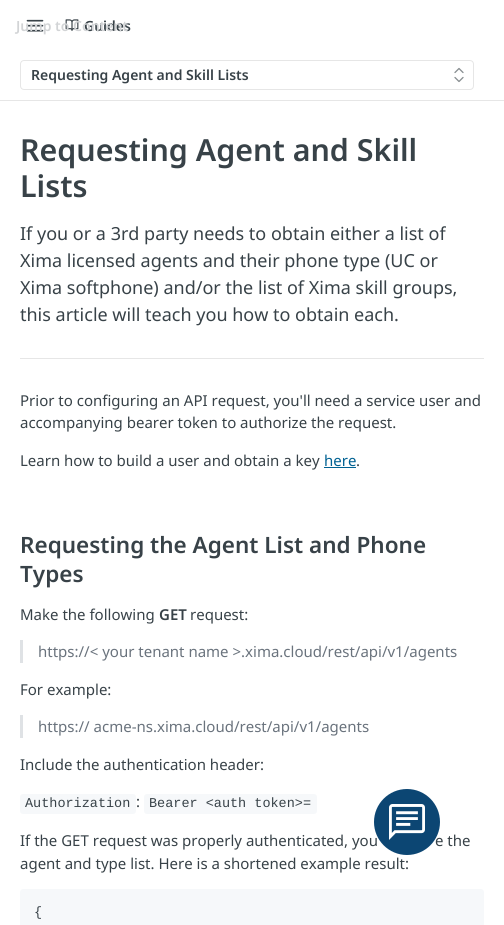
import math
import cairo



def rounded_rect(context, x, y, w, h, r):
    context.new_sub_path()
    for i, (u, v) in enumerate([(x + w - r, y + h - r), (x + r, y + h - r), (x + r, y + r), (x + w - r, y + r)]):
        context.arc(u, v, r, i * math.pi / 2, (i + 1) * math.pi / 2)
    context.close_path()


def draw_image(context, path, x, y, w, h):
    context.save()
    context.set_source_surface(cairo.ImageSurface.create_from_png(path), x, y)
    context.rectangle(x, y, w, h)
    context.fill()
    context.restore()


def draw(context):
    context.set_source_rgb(1, 1, 1)
    context.paint()
    context.set_source_rgb(230 / 255, 230 / 255, 230 / 255)
    context.rectangle(0, 100, 504, 1)
    context.fill()
    draw_image(context, "images/1.png", 26, 19, 18, 13)
    draw_image(context, "images/2.png", 65, 19, 14, 12)
    rounded_rect(context, 20.5, 60.5, 453, 29, 3.5)
    context.set_line_width(1)
    context.stroke()
    context.new_path()
    context.move_to(455, 77.5)
    context.line_to(459, 81.5)
    context.line_to(463, 77.5)
    context.move_to(463, 72.5)
    context.line_to(459, 68.5)
    context.line_to(455, 72.5)
    context.set_source_rgb(136 / 255, 142 / 255, 145 / 255)
    context.set_line_width(1.3)
    context.set_line_cap(cairo.LineCap.ROUND)
    context.set_line_join(cairo.LineJoin.ROUND)
    context.stroke()
    context.set_source_rgb(230 / 255, 230 / 255, 230 / 255)
    context.rectangle(20, 358, 464, 1)
    context.fill()
    context.set_source_rgb(0, 97 / 255, 146 / 255)
    context.rectangle(324, 467, 32, 1)
    context.fill()
    context.set_source_rgb(223 / 255, 226 / 255, 229 / 255)
    context.rectangle(20, 640, 3, 23)
    context.fill()
    context.rectangle(20, 715, 3, 23)
    context.fill()
    context.set_source_rgb(246 / 255, 248 / 255, 250 / 255)
    rounded_rect(context, 20, 794, 116, 20, 3)
    context.fill()
    rounded_rect(context, 144, 794, 173, 20, 3)
    context.fill()
    context.new_path()
    context.move_to(23, 889)
    context.line_to(481, 889)
    context.curve_to(482.5, 889, 484, 890.5, 484, 892)
    context.line_to(484, 925)
    context.line_to(20, 925)
    context.line_to(20, 892)
    context.curve_to(20, 890.5, 21.5, 889, 23, 889)
    context.close_path()
    context.fill()
    context.select_font_face("Noto Sans SemiBold")
    context.set_font_size(14)
    context.set_source_rgb(56 / 255, 66 / 255, 72 / 255)
    context.move_to(84, 31)
    context.show_text("Guides")
    context.set_source_rgb(210 / 255, 212 / 255, 214 / 255)
    context.move_to(16, 31)
    context.show_text("Jump to Content")
    context.set_source_rgb(56 / 255, 66 / 255, 72 / 255)
    context.move_to(31, 80)
    context.show_text("Requesting Agent and Skill Lists")
    context.set_font_size(30.4)
    context.move_to(20, 161)
    context.show_text("Requesting Agent and Skill")
    context.move_to(20, 197)
    context.show_text("Lists")
    context.select_font_face("Noto Sans")
    context.set_font_size(18)
    context.move_to(20, 240)
    context.show_text("If you or a 3rd party needs to obtain either a list of")
    context.move_to(20, 267)
    context.show_text("Xima licensed agents and their phone type (UC or")
    context.move_to(20, 294)
    context.show_text("Xima softphone) and/or the list of Xima skill groups,")
    context.move_to(20, 321)
    context.show_text("this article will teach you how to obtain each.")
    context.set_font_size(15)
    context.move_to(20, 406)
    context.show_text("Prior to configuring an API request, you'll need a service user and")
    context.move_to(20, 428)
    context.show_text("accompanying bearer token to authorize the request.")
    context.move_to(20, 466)
    context.show_text("Learn how to build a user and obtain a key")
    context.set_source_rgb(0, 97 / 255, 146 / 255)
    context.move_to(324, 466)
    context.show_text("here")
    context.set_source_rgb(56 / 255, 66 / 255, 72 / 255)
    context.move_to(356, 466)
    context.show_text(".")
    context.select_font_face("Noto Sans SemiBold")
    context.set_font_size(22.5)
    context.move_to(20, 553)
    context.show_text("Requesting the Agent List and Phone")
    context.move_to(20, 582)
    context.show_text("Types")
    context.select_font_face("Noto Sans")
    context.set_font_size(15)
    context.move_to(20, 620)
    context.show_text("Make the following")
    context.select_font_face("Noto Sans SemiBold")
    context.move_to(159, 620)
    context.show_text("GET")
    context.select_font_face("Noto Sans")
    context.move_to(190, 620)
    context.show_text("request:")
    context.set_source_rgb(106 / 255, 115 / 255, 125 / 255)
    context.move_to(38, 657)
    context.show_text("https://< your tenant name >.xima.cloud/rest/api/v1/agents")
    context.set_source_rgb(56 / 255, 66 / 255, 72 / 255)
    context.move_to(20, 695)
    context.show_text("For example:")
    context.set_source_rgb(106 / 255, 115 / 255, 125 / 255)
    context.move_to(38, 732)
    context.show_text("https:// acme-ns.xima.cloud/rest/api/v1/agents")
    context.set_source_rgb(56 / 255, 66 / 255, 72 / 255)
    context.move_to(20, 770)
    context.show_text("Include the authentication header:")
    context.select_font_face("Liberation Mono")
    context.set_font_size(13.5)
    context.move_to(25, 807)
    context.show_text("Authorization")
    context.select_font_face("Noto Sans")
    context.set_font_size(15)
    context.move_to(136, 807)
    context.show_text(":")
    context.select_font_face("Liberation Mono")
    context.set_font_size(13.5)
    context.move_to(149, 807)
    context.show_text("Bearer <auth token>=")
    context.select_font_face("Noto Sans")
    context.set_font_size(15)
    context.move_to(20, 846)
    context.show_text("If the GET request was properly authenticated, you")
    context.move_to(435, 846)
    context.show_text("e the")
    context.move_to(20, 869)
    context.show_text("agent and type list. Here is a shortened example result:")
    context.select_font_face("Liberation Mono")
    context.set_font_size(13.5)
    context.move_to(34, 916)
    context.show_text("{")
    context.set_source_rgb(12 / 255, 70 / 255, 115 / 255)
    context.new_path()
    context.arc(407, 822, 33, 0, 2 * math.pi)
    context.fill()
    draw_image(context, "images/3.png", 389, 804, 36, 36)


surface = cairo.ImageSurface(cairo.Format.RGB24, 504, 925)
context = cairo.Context(surface)
options = cairo.FontOptions()
options.set_hint_metrics(cairo.HintMetrics.OFF)
options.set_hint_style(cairo.HintStyle.NONE)
context.set_font_options(options)
context.set_miter_limit(4)
draw(context)
surface.write_to_png("out.png")
